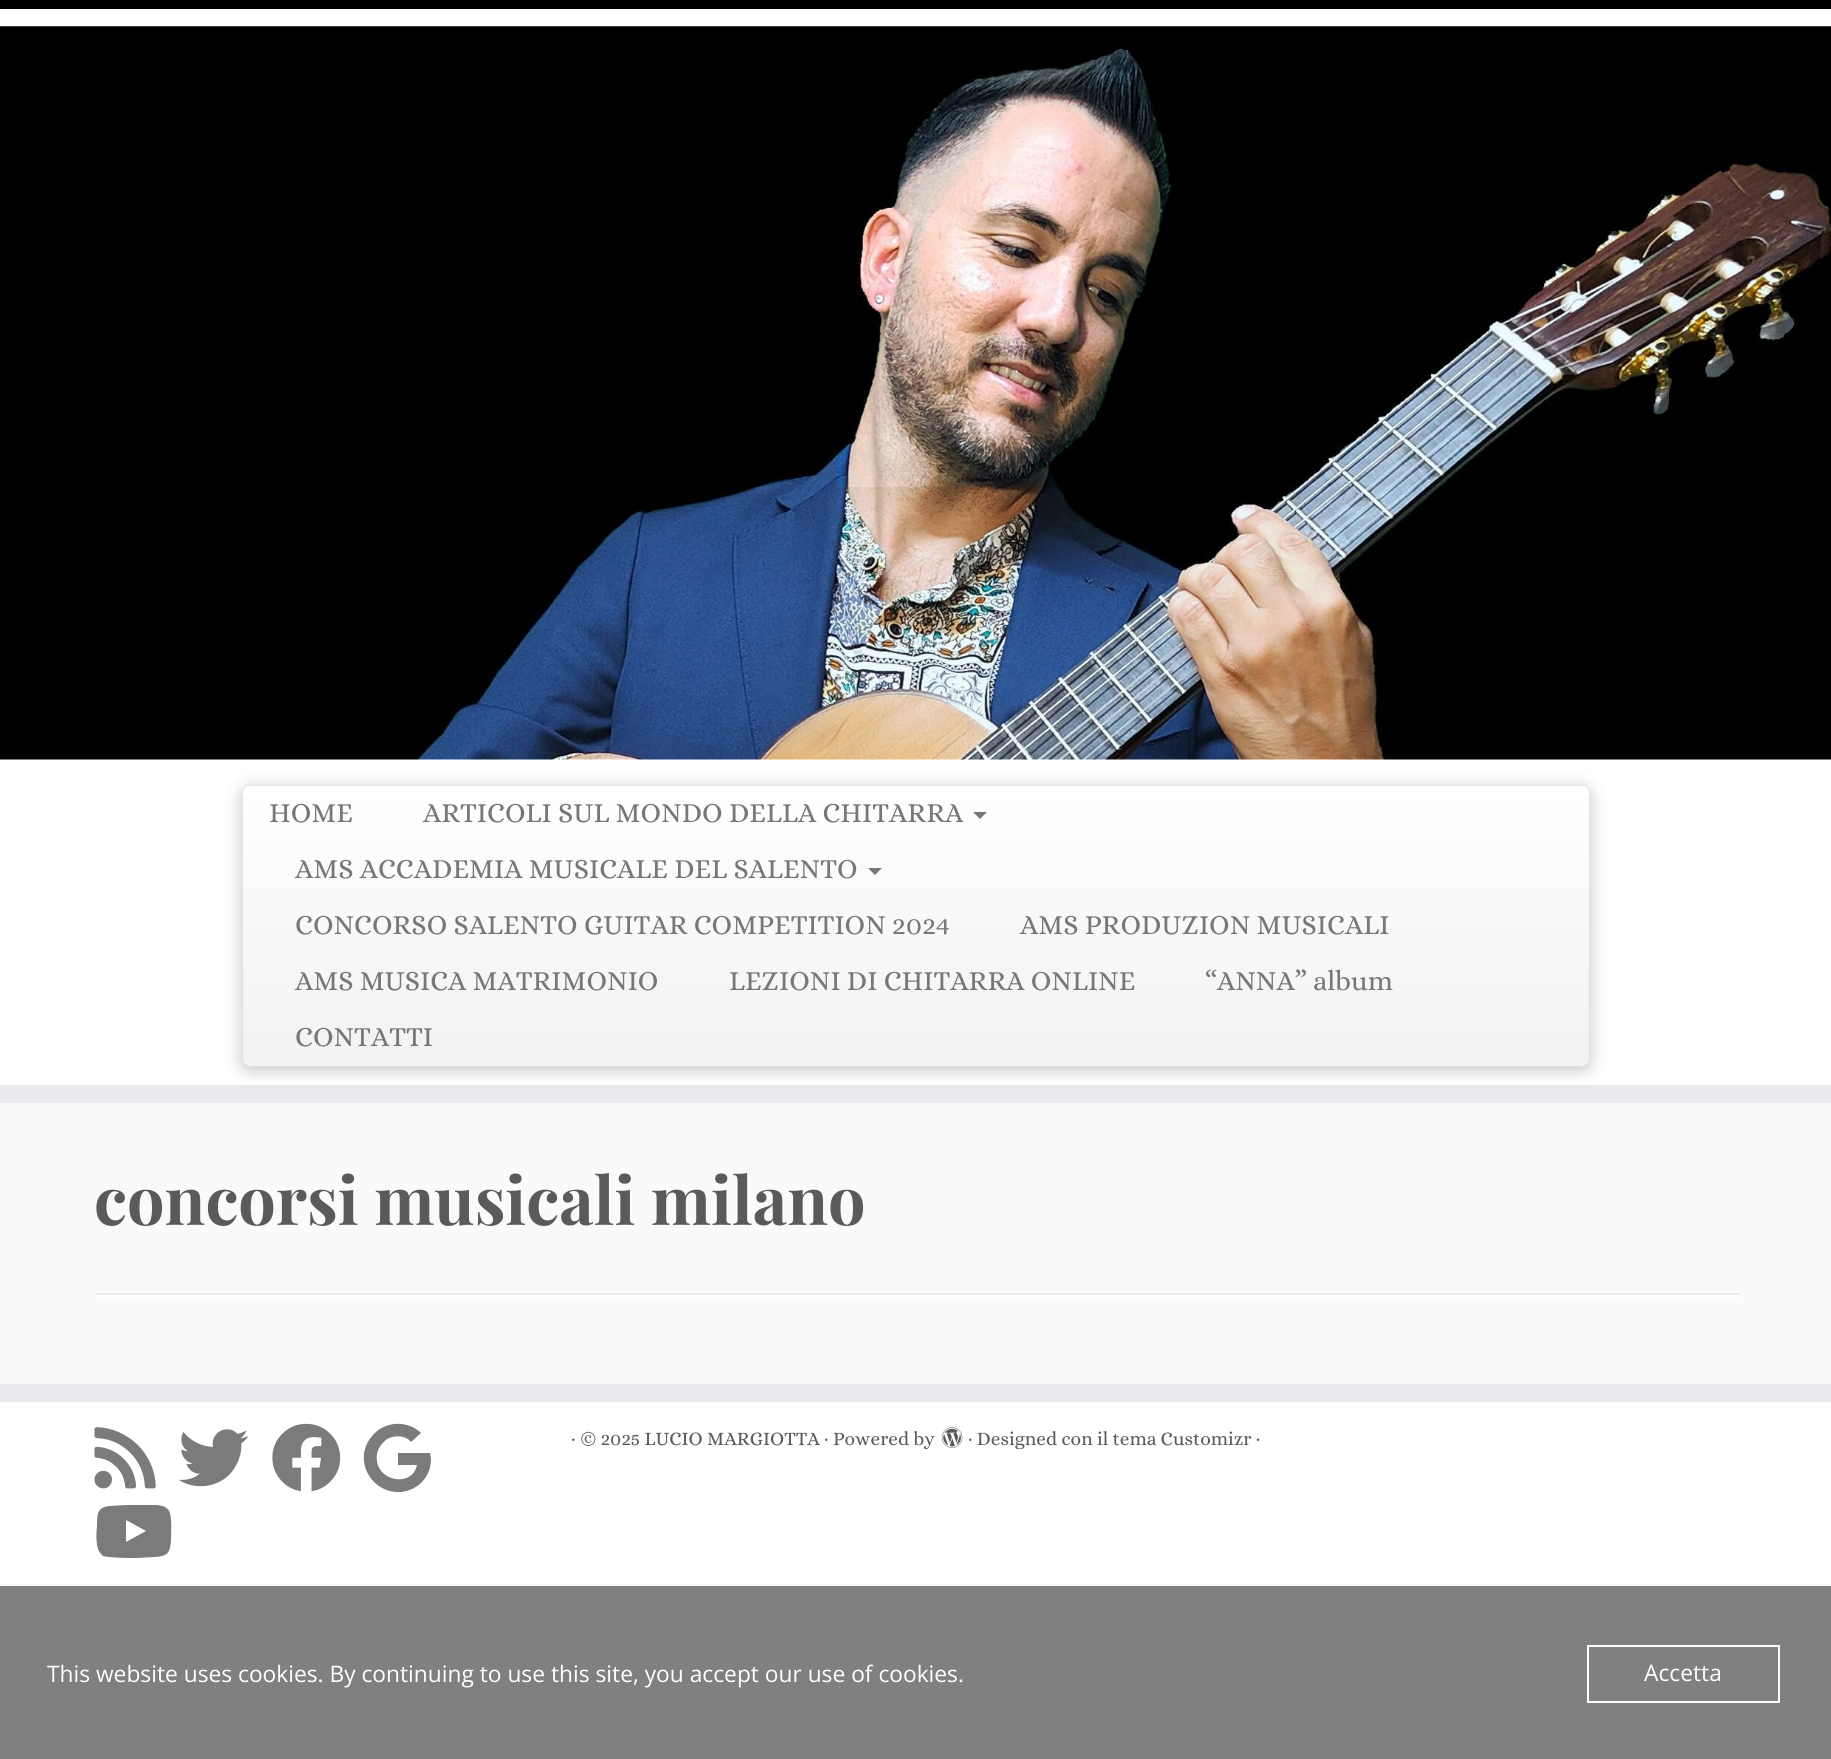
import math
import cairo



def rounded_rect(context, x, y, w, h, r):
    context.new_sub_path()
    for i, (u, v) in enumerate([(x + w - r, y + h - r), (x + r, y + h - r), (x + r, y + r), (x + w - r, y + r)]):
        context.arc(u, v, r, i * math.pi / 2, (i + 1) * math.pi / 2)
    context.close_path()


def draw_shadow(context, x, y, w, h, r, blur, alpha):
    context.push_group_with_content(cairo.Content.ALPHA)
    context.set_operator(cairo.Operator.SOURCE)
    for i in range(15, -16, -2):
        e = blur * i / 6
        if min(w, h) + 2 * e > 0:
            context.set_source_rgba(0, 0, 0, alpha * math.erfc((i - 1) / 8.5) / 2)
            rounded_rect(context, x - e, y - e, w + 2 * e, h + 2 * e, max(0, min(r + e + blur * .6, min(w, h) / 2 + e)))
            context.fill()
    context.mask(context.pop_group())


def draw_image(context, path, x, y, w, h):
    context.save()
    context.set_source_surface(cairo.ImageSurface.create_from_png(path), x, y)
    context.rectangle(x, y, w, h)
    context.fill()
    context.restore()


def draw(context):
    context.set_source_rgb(250 / 255, 250 / 255, 250 / 255)
    context.paint()
    context.set_source_rgb(1, 1, 1)
    context.rectangle(0, 9, 1831, 1076)
    context.fill()
    context.set_source_rgb(0, 0, 0)
    context.rectangle(0, 0, 1831, 9)
    context.fill()
    context.set_source_rgb(233 / 255, 234 / 255, 238 / 255)
    context.rectangle(0, 1085, 1831, 18)
    context.fill()
    draw_image(context, "images/1.png", 0, 26, 1831, 734)
    context.set_source_rgb(0, 0, 0)
    draw_shadow(context, 243, 789, 1346, 280, 7, 9, 0.25)
    gradient = cairo.LinearGradient(916, 786, 916, 1066)
    gradient.add_color_stop_rgba(0, 1, 1, 1, 1)
    gradient.add_color_stop_rgba(1, 242 / 255, 242 / 255, 242 / 255, 1)
    context.set_source(gradient)
    rounded_rect(context, 243, 786, 1346, 280, 7)
    context.fill()
    context.set_source_rgb(119 / 255, 119 / 255, 119 / 255)
    context.new_path()
    context.move_to(973, 812)
    context.line_to(987, 812)
    context.line_to(980, 819)
    context.close_path()
    context.fill()
    context.new_path()
    context.move_to(868, 868)
    context.line_to(882, 868)
    context.line_to(875, 875)
    context.close_path()
    context.fill()
    context.set_source_rgb(238 / 255, 238 / 255, 238 / 255)
    context.rectangle(95, 1293, 1645, 2)
    context.fill()
    context.set_source_rgb(1, 1, 1)
    context.rectangle(95, 1295, 1645, 2)
    context.fill()
    context.set_source_rgb(233 / 255, 234 / 255, 238 / 255)
    context.rectangle(0, 1384, 1831, 18)
    context.fill()
    context.set_source_rgb(1, 1, 1)
    context.rectangle(0, 1402, 1831, 182)
    context.fill()
    draw_image(context, "images/2.png", 94, 1427, 62, 62)
    draw_image(context, "images/3.png", 178, 1429, 71, 58)
    draw_image(context, "images/4.png", 272, 1423, 69, 69)
    context.set_source_rgb(123 / 255, 123 / 255, 123 / 255)
    context.new_path()
    context.move_to(431, 1459)
    context.curve_to(431, 1476, 419, 1490, 401, 1492)
    context.curve_to(370, 1494, 351, 1457, 374, 1434)
    context.curve_to(379, 1428, 387, 1425, 394, 1424)
    context.curve_to(404, 1423, 414, 1426, 421, 1433)
    context.line_to(411, 1442)
    context.curve_to(405, 1435, 395, 1435, 387, 1439)
    context.curve_to(382, 1443, 378, 1448, 377, 1454)
    context.curve_to(373, 1481, 412, 1489, 417, 1465)
    context.line_to(398, 1465)
    context.line_to(398, 1453)
    context.line_to(430, 1453)
    context.close_path()
    context.fill()
    context.new_path()
    context.move_to(170, 1513)
    context.curve_to(172, 1522, 171, 1531, 171, 1540)
    context.curve_to(170, 1553, 168, 1556, 155, 1557)
    context.line_to(137, 1558)
    context.curve_to(129, 1558, 111, 1558, 103, 1556)
    context.curve_to(101, 1554, 99, 1552, 98, 1549)
    context.curve_to(96, 1542, 96, 1533, 97, 1526)
    context.curve_to(97, 1514, 97, 1507, 110, 1506)
    context.line_to(126, 1505)
    context.line_to(149, 1505)
    context.curve_to(156, 1505, 167, 1504, 170, 1513)
    context.close_path()
    context.move_to(126, 1542)
    context.line_to(146, 1531)
    context.line_to(126, 1520)
    context.close_path()
    context.fill()
    draw_image(context, "images/5.png", 941, 1427, 22, 21)
    context.set_source_rgb(128 / 255, 128 / 255, 128 / 255)
    context.rectangle(0, 1586, 1831, 173)
    context.fill()
    context.rectangle(1588, 1646, 191, 56)
    context.set_source_rgb(1, 1, 1)
    context.stroke()
    context.select_font_face("Alice")
    context.set_font_size(28)
    context.set_source_rgb(119 / 255, 119 / 255, 119 / 255)
    context.move_to(269, 822)
    context.show_text("HOME")
    context.move_to(423, 822)
    context.show_text("ARTICOLI SUL MONDO DELLA CHITARRA")
    context.move_to(295, 878)
    context.show_text("AMS ACCADEMIA MUSICALE DEL SALENTO")
    context.move_to(295, 934)
    context.show_text("CONCORSO SALENTO GUITAR COMPETITION 2024")
    context.move_to(1020, 934)
    context.show_text("AMS PRODUZION MUSICALI")
    context.move_to(295, 990)
    context.show_text("AMS MUSICA MATRIMONIO")
    context.move_to(729, 990)
    context.show_text("LEZIONI DI CHITARRA ONLINE")
    context.move_to(1205, 990)
    context.show_text("“ANNA” album")
    context.move_to(295, 1046)
    context.show_text("CONTATTI")
    context.select_font_face("Playfair Display", cairo.FontSlant.NORMAL, cairo.FontWeight.BOLD)
    context.set_font_size(66.5)
    context.set_source_rgb(90 / 255, 90 / 255, 90 / 255)
    context.move_to(94, 1225)
    context.show_text("concorsi musicali milano")
    context.select_font_face("Alice")
    context.set_font_size(19.25)
    context.move_to(571, 1445)
    context.show_text("· © 2025 LUCIO MARGIOTTA · Powered by")
    context.move_to(968, 1445)
    context.show_text("· Designed con il tema Customizr ·")
    context.select_font_face("Open Sans")
    context.set_font_size(22.75)
    context.set_source_rgb(1, 1, 1)
    context.move_to(47, 1682)
    context.show_text("This website uses cookies. By continuing to use this site, you accept our use of cookies.")
    context.move_to(1644, 1681)
    context.show_text("Accetta")


surface = cairo.ImageSurface(cairo.Format.RGB24, 1831, 1759)
context = cairo.Context(surface)
options = cairo.FontOptions()
options.set_hint_metrics(cairo.HintMetrics.OFF)
options.set_hint_style(cairo.HintStyle.NONE)
context.set_font_options(options)
context.set_miter_limit(4)
draw(context)
surface.write_to_png("out.png")
